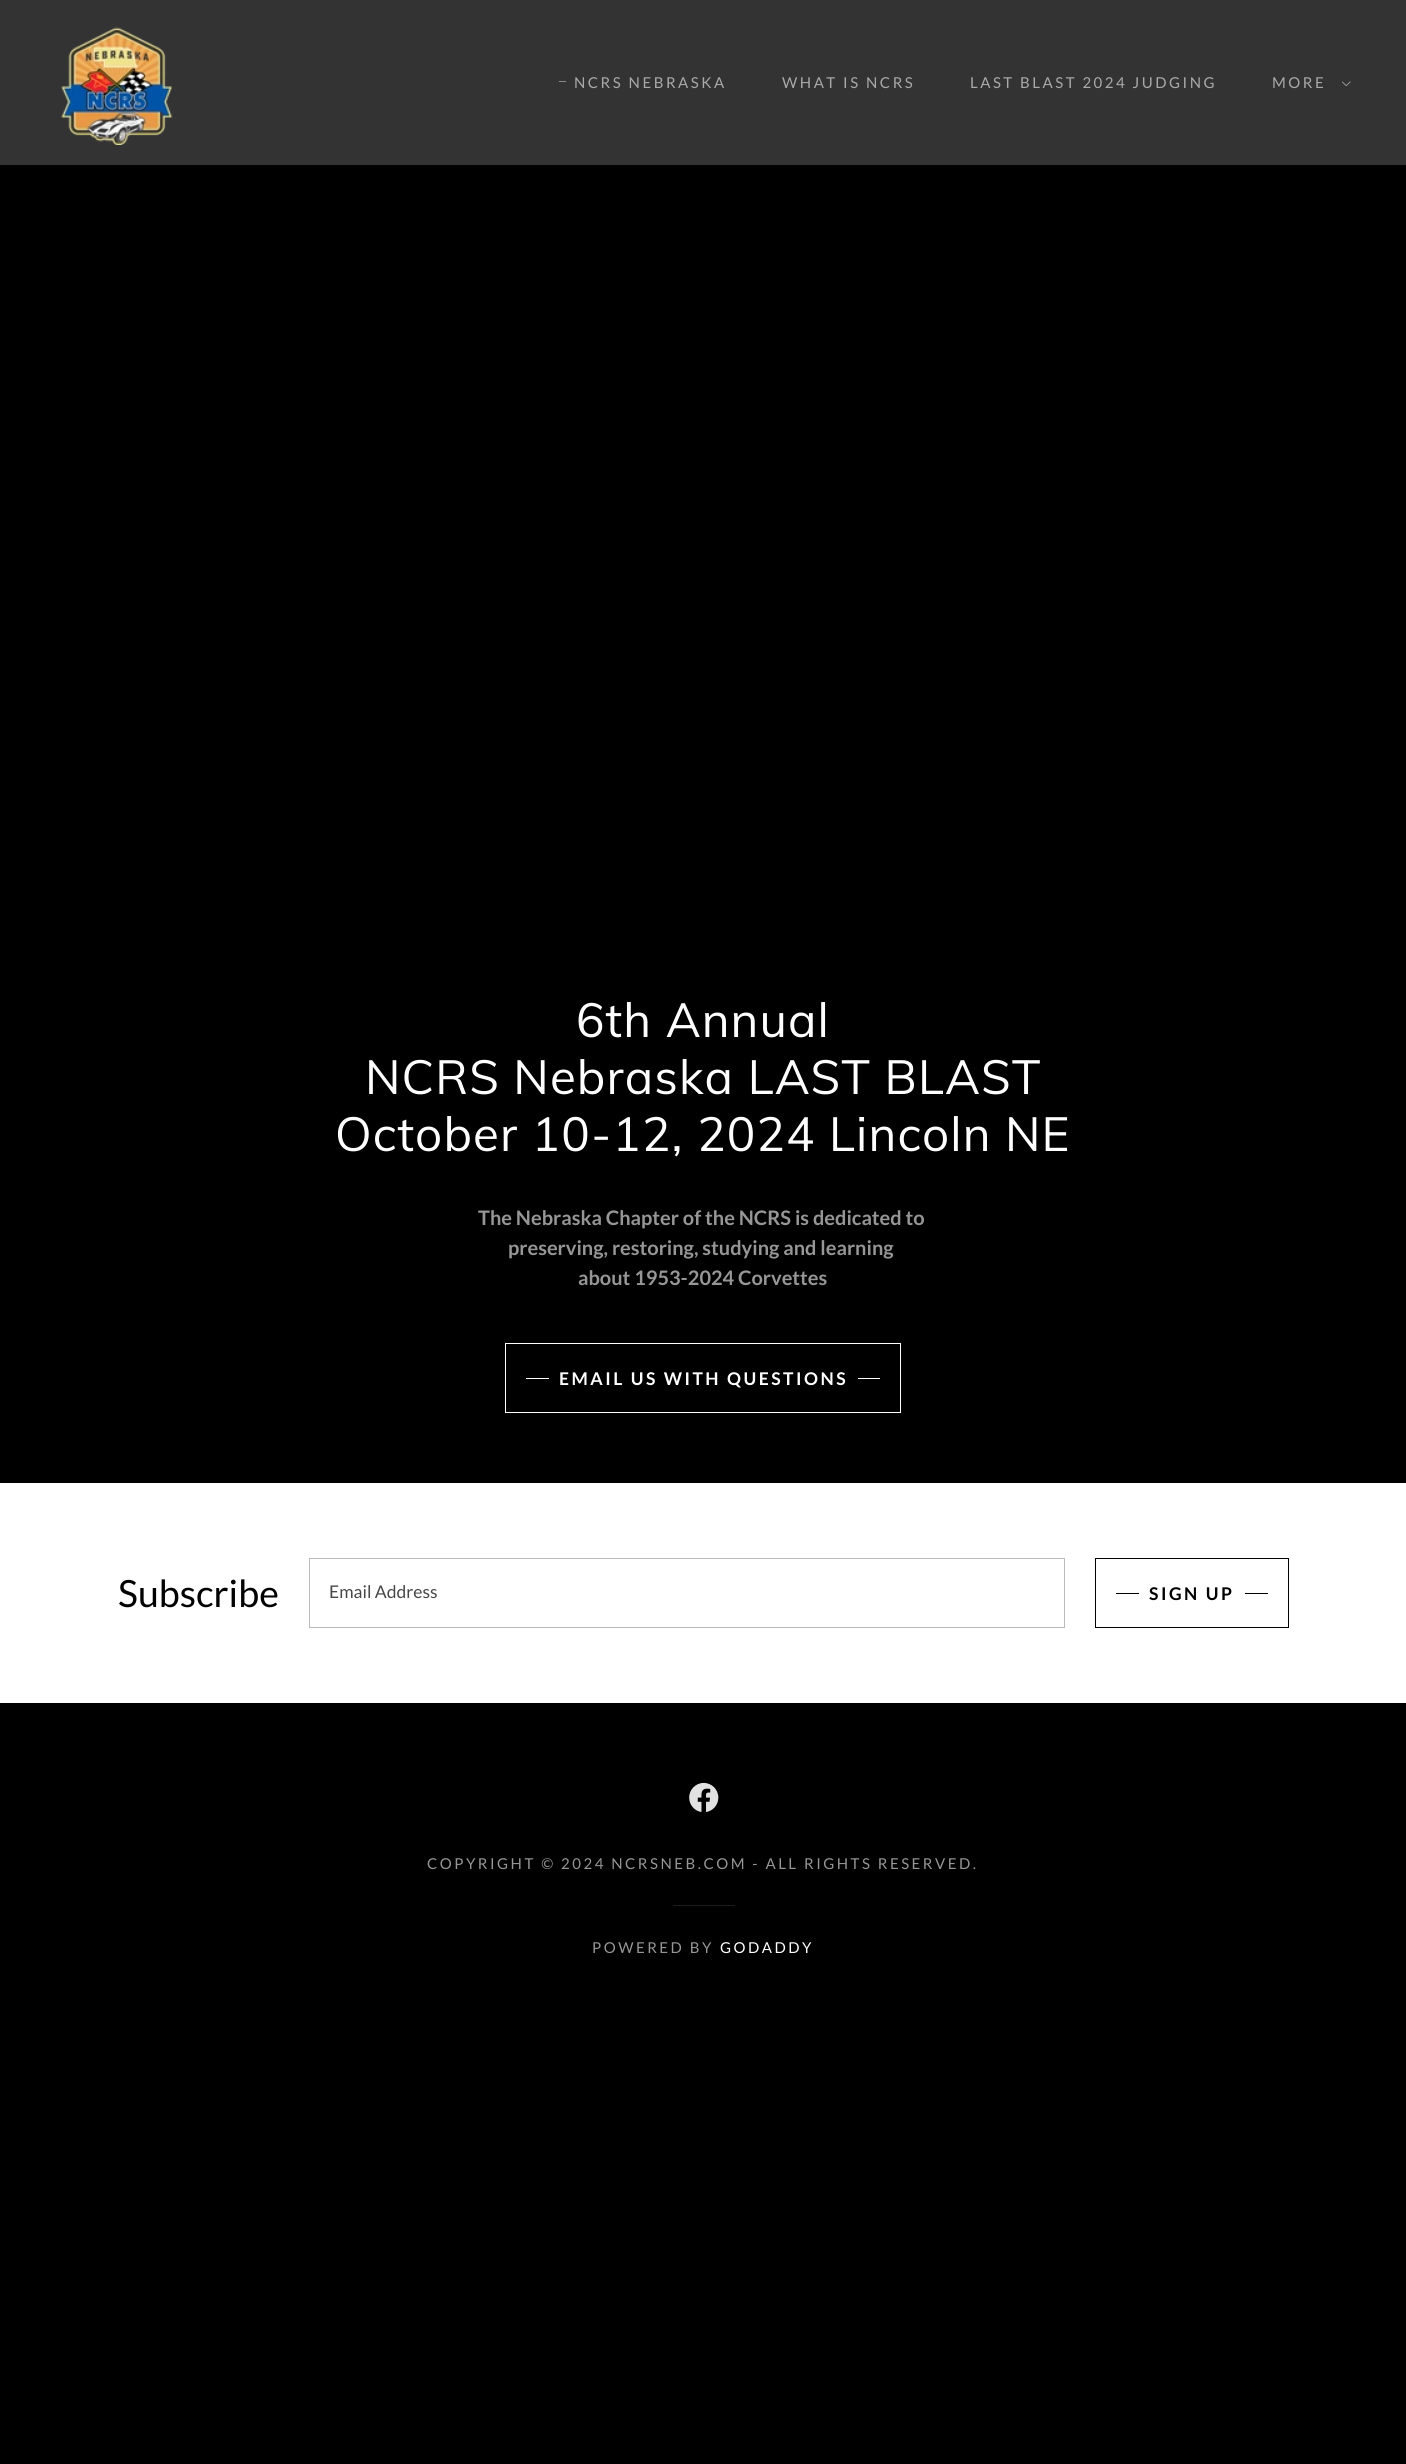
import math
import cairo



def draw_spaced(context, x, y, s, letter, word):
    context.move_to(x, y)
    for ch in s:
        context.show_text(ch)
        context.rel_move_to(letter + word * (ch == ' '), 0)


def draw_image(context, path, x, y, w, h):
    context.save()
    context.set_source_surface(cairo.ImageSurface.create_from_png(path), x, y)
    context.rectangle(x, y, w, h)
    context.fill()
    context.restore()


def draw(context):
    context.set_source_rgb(0, 0, 0)
    context.paint()
    context.set_source_rgb(51 / 255, 51 / 255, 51 / 255)
    context.rectangle(0, 0, 1406, 165)
    context.fill()
    draw_image(context, "images/1.png", 61, 27, 112, 118)
    context.set_source_rgb(137 / 255, 137 / 255, 137 / 255)
    context.rectangle(559, 81, 7, 1)
    context.fill()
    draw_image(context, "images/2.png", 1342, 81, 9, 6)
    context.rectangle(505.5, 1343.5, 395, 69)
    context.set_source_rgb(1, 1, 1)
    context.set_line_width(1)
    context.stroke()
    context.rectangle(526, 1378, 23, 1)
    context.fill()
    context.rectangle(858, 1378, 22, 1)
    context.fill()
    context.rectangle(0, 1483, 1406, 220)
    context.fill()
    context.rectangle(309.5, 1558.5, 755, 69)
    context.set_source_rgb(187 / 255, 187 / 255, 187 / 255)
    context.stroke()
    context.rectangle(1095.5, 1558.5, 193, 69)
    context.set_source_rgb(0, 0, 0)
    context.stroke()
    context.rectangle(1116, 1593, 23, 1)
    context.fill()
    context.rectangle(1245, 1593, 23, 1)
    context.fill()
    draw_image(context, "images/3.png", 689, 1782, 30, 30)
    context.set_source_rgb(27 / 255, 27 / 255, 27 / 255)
    context.rectangle(673, 1905, 62, 1)
    context.fill()
    context.select_font_face("Lato")
    context.set_font_size(15)
    context.set_source_rgb(169 / 255, 169 / 255, 169 / 255)
    draw_spaced(context, 574, 88, "NCRS NEBRASKA", 2.5, 0)
    draw_spaced(context, 782, 88, "WHAT IS NCRS", 2.5, 0)
    draw_spaced(context, 970, 88, "LAST BLAST 2024 JUDGING", 2.5, 0)
    draw_spaced(context, 1272, 88, "MORE", 2.5, 0)
    context.select_font_face("Muli")
    context.set_font_size(47.5)
    context.set_source_rgb(1, 1, 1)
    draw_spaced(context, 576, 1037, "6th Annual", 1.1, 0)
    draw_spaced(context, 365, 1094, "NCRS Nebraska LAST BLAST", 1.1, 0)
    draw_spaced(context, 335, 1151, "October 10-12, 2024 Lincoln NE", 1.1, 0)
    context.select_font_face("Lato", cairo.FontSlant.NORMAL, cairo.FontWeight.BOLD)
    context.set_font_size(20)
    context.set_source_rgb(150 / 255, 150 / 255, 150 / 255)
    context.move_to(478, 1225)
    context.show_text("The Nebraska Chapter of the NCRS is dedicated to")
    context.move_to(508, 1255)
    context.show_text("preserving, restoring, studying and learning")
    context.move_to(578, 1285)
    context.show_text("about 1953-2024 Corvettes")
    context.set_font_size(17.5)
    context.set_source_rgb(1, 1, 1)
    draw_spaced(context, 559, 1385, "EMAIL US WITH QUESTIONS", 2.5, 0)
    context.select_font_face("Lato")
    context.set_font_size(37.5)
    context.set_source_rgb(0, 0, 0)
    context.move_to(118, 1607)
    context.show_text("Subscribe")
    context.set_font_size(17.5)
    context.set_source_rgb(71 / 255, 71 / 255, 71 / 255)
    context.move_to(329, 1598)
    context.show_text("Email Address")
    context.select_font_face("Lato", cairo.FontSlant.NORMAL, cairo.FontWeight.BOLD)
    context.set_source_rgb(0, 0, 0)
    draw_spaced(context, 1149, 1600, "SIGN UP", 2.5, 0)
    context.select_font_face("Lato")
    context.set_font_size(15)
    context.set_source_rgb(150 / 255, 150 / 255, 150 / 255)
    draw_spaced(context, 427, 1869, "COPYRIGHT © 2024 NCRSNEB.COM - ALL RIGHTS RESERVED.", 2.5, 0)
    draw_spaced(context, 592, 1953, "POWERED BY", 2.5, 0)
    context.set_source_rgb(1, 1, 1)
    draw_spaced(context, 720, 1953, "GODADDY", 2.5, 0)


surface = cairo.ImageSurface(cairo.Format.RGB24, 1406, 2464)
context = cairo.Context(surface)
options = cairo.FontOptions()
options.set_hint_metrics(cairo.HintMetrics.OFF)
options.set_hint_style(cairo.HintStyle.NONE)
context.set_font_options(options)
context.set_miter_limit(4)
draw(context)
surface.write_to_png("out.png")
